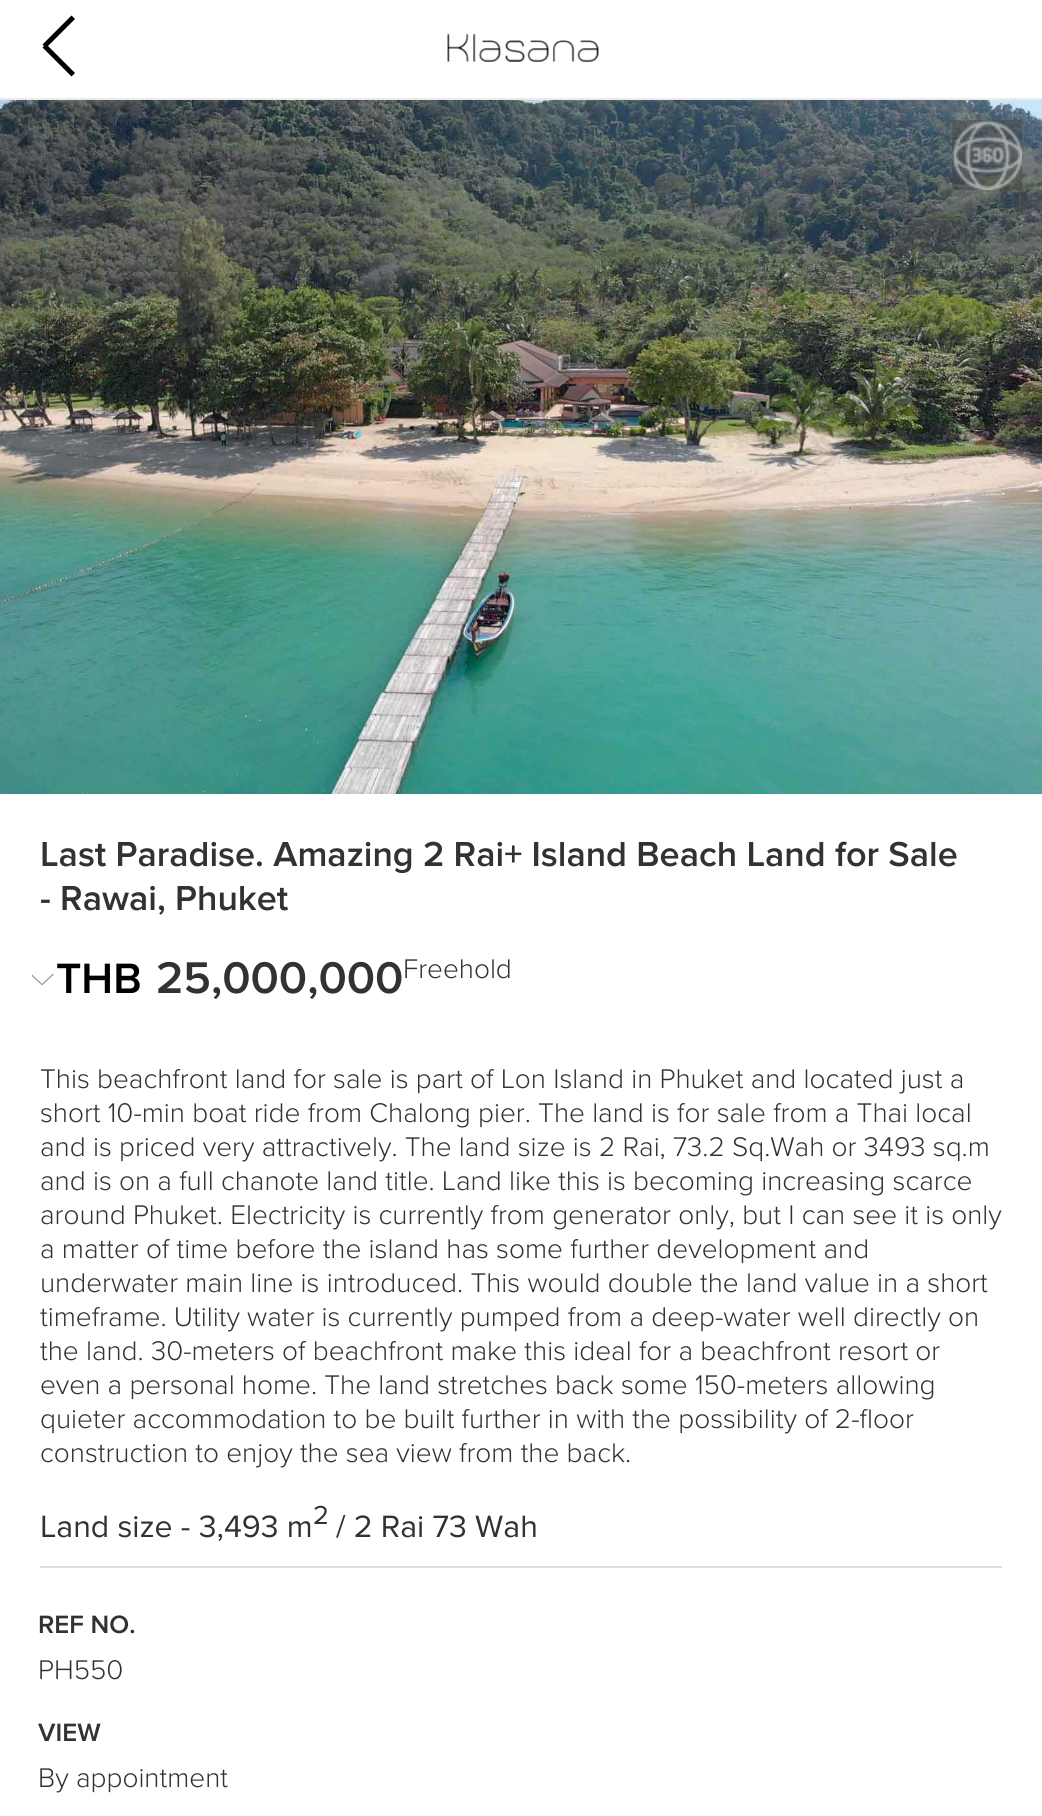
import math
import cairo



def draw_image(context, path, x, y, w, h):
    context.save()
    context.set_source_surface(cairo.ImageSurface.create_from_png(path), x, y)
    context.rectangle(x, y, w, h)
    context.fill()
    context.restore()


def draw(context):
    context.set_source_rgb(1, 1, 1)
    context.paint()
    context.set_source_rgb(235 / 255, 235 / 255, 235 / 255)
    context.rectangle(0, 98, 1042, 2)
    context.fill()
    context.set_source_rgb(0, 0, 0)
    context.new_path()
    context.move_to(42.5, 44.5)
    context.line_to(71.5, 15.5)
    context.line_to(75, 19)
    context.line_to(46, 48)
    context.close_path()
    context.fill()
    context.new_path()
    context.move_to(46, 44)
    context.line_to(75, 73)
    context.line_to(71.5, 76.5)
    context.line_to(42.5, 47.5)
    context.close_path()
    context.fill()
    draw_image(context, "images/1.png", 447, 33, 152, 29)
    draw_image(context, "images/2.png", 0, 100, 1042, 694)
    context.set_source_rgba(68 / 255, 68 / 255, 68 / 255, 0.5)
    context.rectangle(952, 120, 70, 70)
    context.fill()
    draw_image(context, "images/3.png", 952, 120, 70, 70)
    draw_image(context, "images/4.png", 32, 974, 22, 12)
    context.set_source_rgb(220 / 255, 220 / 255, 220 / 255)
    context.rectangle(40, 1566, 962, 2)
    context.fill()
    context.select_font_face("Proxima Nova SemiBold")
    context.set_font_size(36)
    context.set_source_rgb(50 / 255, 50 / 255, 50 / 255)
    context.move_to(40, 866)
    context.show_text("Last Paradise. Amazing 2 Rai+ Island Beach Land for Sale")
    context.move_to(40, 910)
    context.show_text("- Rawai, Phuket")
    context.set_font_size(44)
    context.set_source_rgb(0, 0, 0)
    context.move_to(56, 993)
    context.show_text("THB")
    context.set_font_size(46)
    context.set_source_rgb(50 / 255, 50 / 255, 50 / 255)
    context.move_to(156, 993)
    context.show_text("25,000,000")
    context.select_font_face("Proxima Nova Light")
    context.set_font_size(28)
    context.move_to(403, 978)
    context.show_text("Freehold")
    context.move_to(40, 1088)
    context.show_text("This beachfront land for sale is part of Lon Island in Phuket and located just a")
    context.move_to(40, 1122)
    context.show_text("short 10-min boat ride from Chalong pier. The land is for sale from a Thai local")
    context.move_to(40, 1156)
    context.show_text("and is priced very attractively. The land size is 2 Rai, 73.2 Sq.Wah or 3493 sq.m")
    context.move_to(40, 1190)
    context.show_text("and is on a full chanote land title. Land like this is becoming increasing scarce")
    context.move_to(40, 1224)
    context.show_text("around Phuket. Electricity is currently from generator only, but I can see it is only")
    context.move_to(40, 1258)
    context.show_text("a matter of time before the island has some further development and")
    context.move_to(40, 1292)
    context.show_text("underwater main line is introduced. This would double the land value in a short")
    context.move_to(40, 1326)
    context.show_text("timeframe. Utility water is currently pumped from a deep-water well directly on")
    context.move_to(40, 1360)
    context.show_text("the land. 30-meters of beachfront make this ideal for a beachfront resort or")
    context.move_to(40, 1394)
    context.show_text("even a personal home. The land stretches back some 150-meters allowing")
    context.move_to(40, 1428)
    context.show_text("quieter accommodation to be built further in with the possibility of 2-floor")
    context.move_to(40, 1462)
    context.show_text("construction to enjoy the sea view from the back.")
    context.select_font_face("Proxima Nova")
    context.set_font_size(32)
    context.move_to(40, 1537)
    context.show_text("Land size - 3,493 m")
    context.set_font_size(27)
    context.move_to(313, 1524)
    context.show_text("2")
    context.set_font_size(32)
    context.move_to(336, 1537)
    context.show_text("/ 2 Rai 73 Wah")
    context.select_font_face("Proxima Nova SemiBold")
    context.set_font_size(26)
    context.move_to(38, 1633)
    context.show_text("REF NO.")
    context.select_font_face("Proxima Nova Light")
    context.set_font_size(28)
    context.move_to(38, 1679)
    context.show_text("PH550")
    context.select_font_face("Proxima Nova SemiBold")
    context.set_font_size(26)
    context.move_to(38, 1741)
    context.show_text("VIEW")
    context.select_font_face("Proxima Nova Light")
    context.set_font_size(28)
    context.move_to(38, 1787)
    context.show_text("By appointment")


surface = cairo.ImageSurface(cairo.Format.RGB24, 1042, 1816)
context = cairo.Context(surface)
options = cairo.FontOptions()
options.set_hint_metrics(cairo.HintMetrics.OFF)
options.set_hint_style(cairo.HintStyle.NONE)
context.set_font_options(options)
context.set_miter_limit(4)
draw(context)
surface.write_to_png("out.png")
